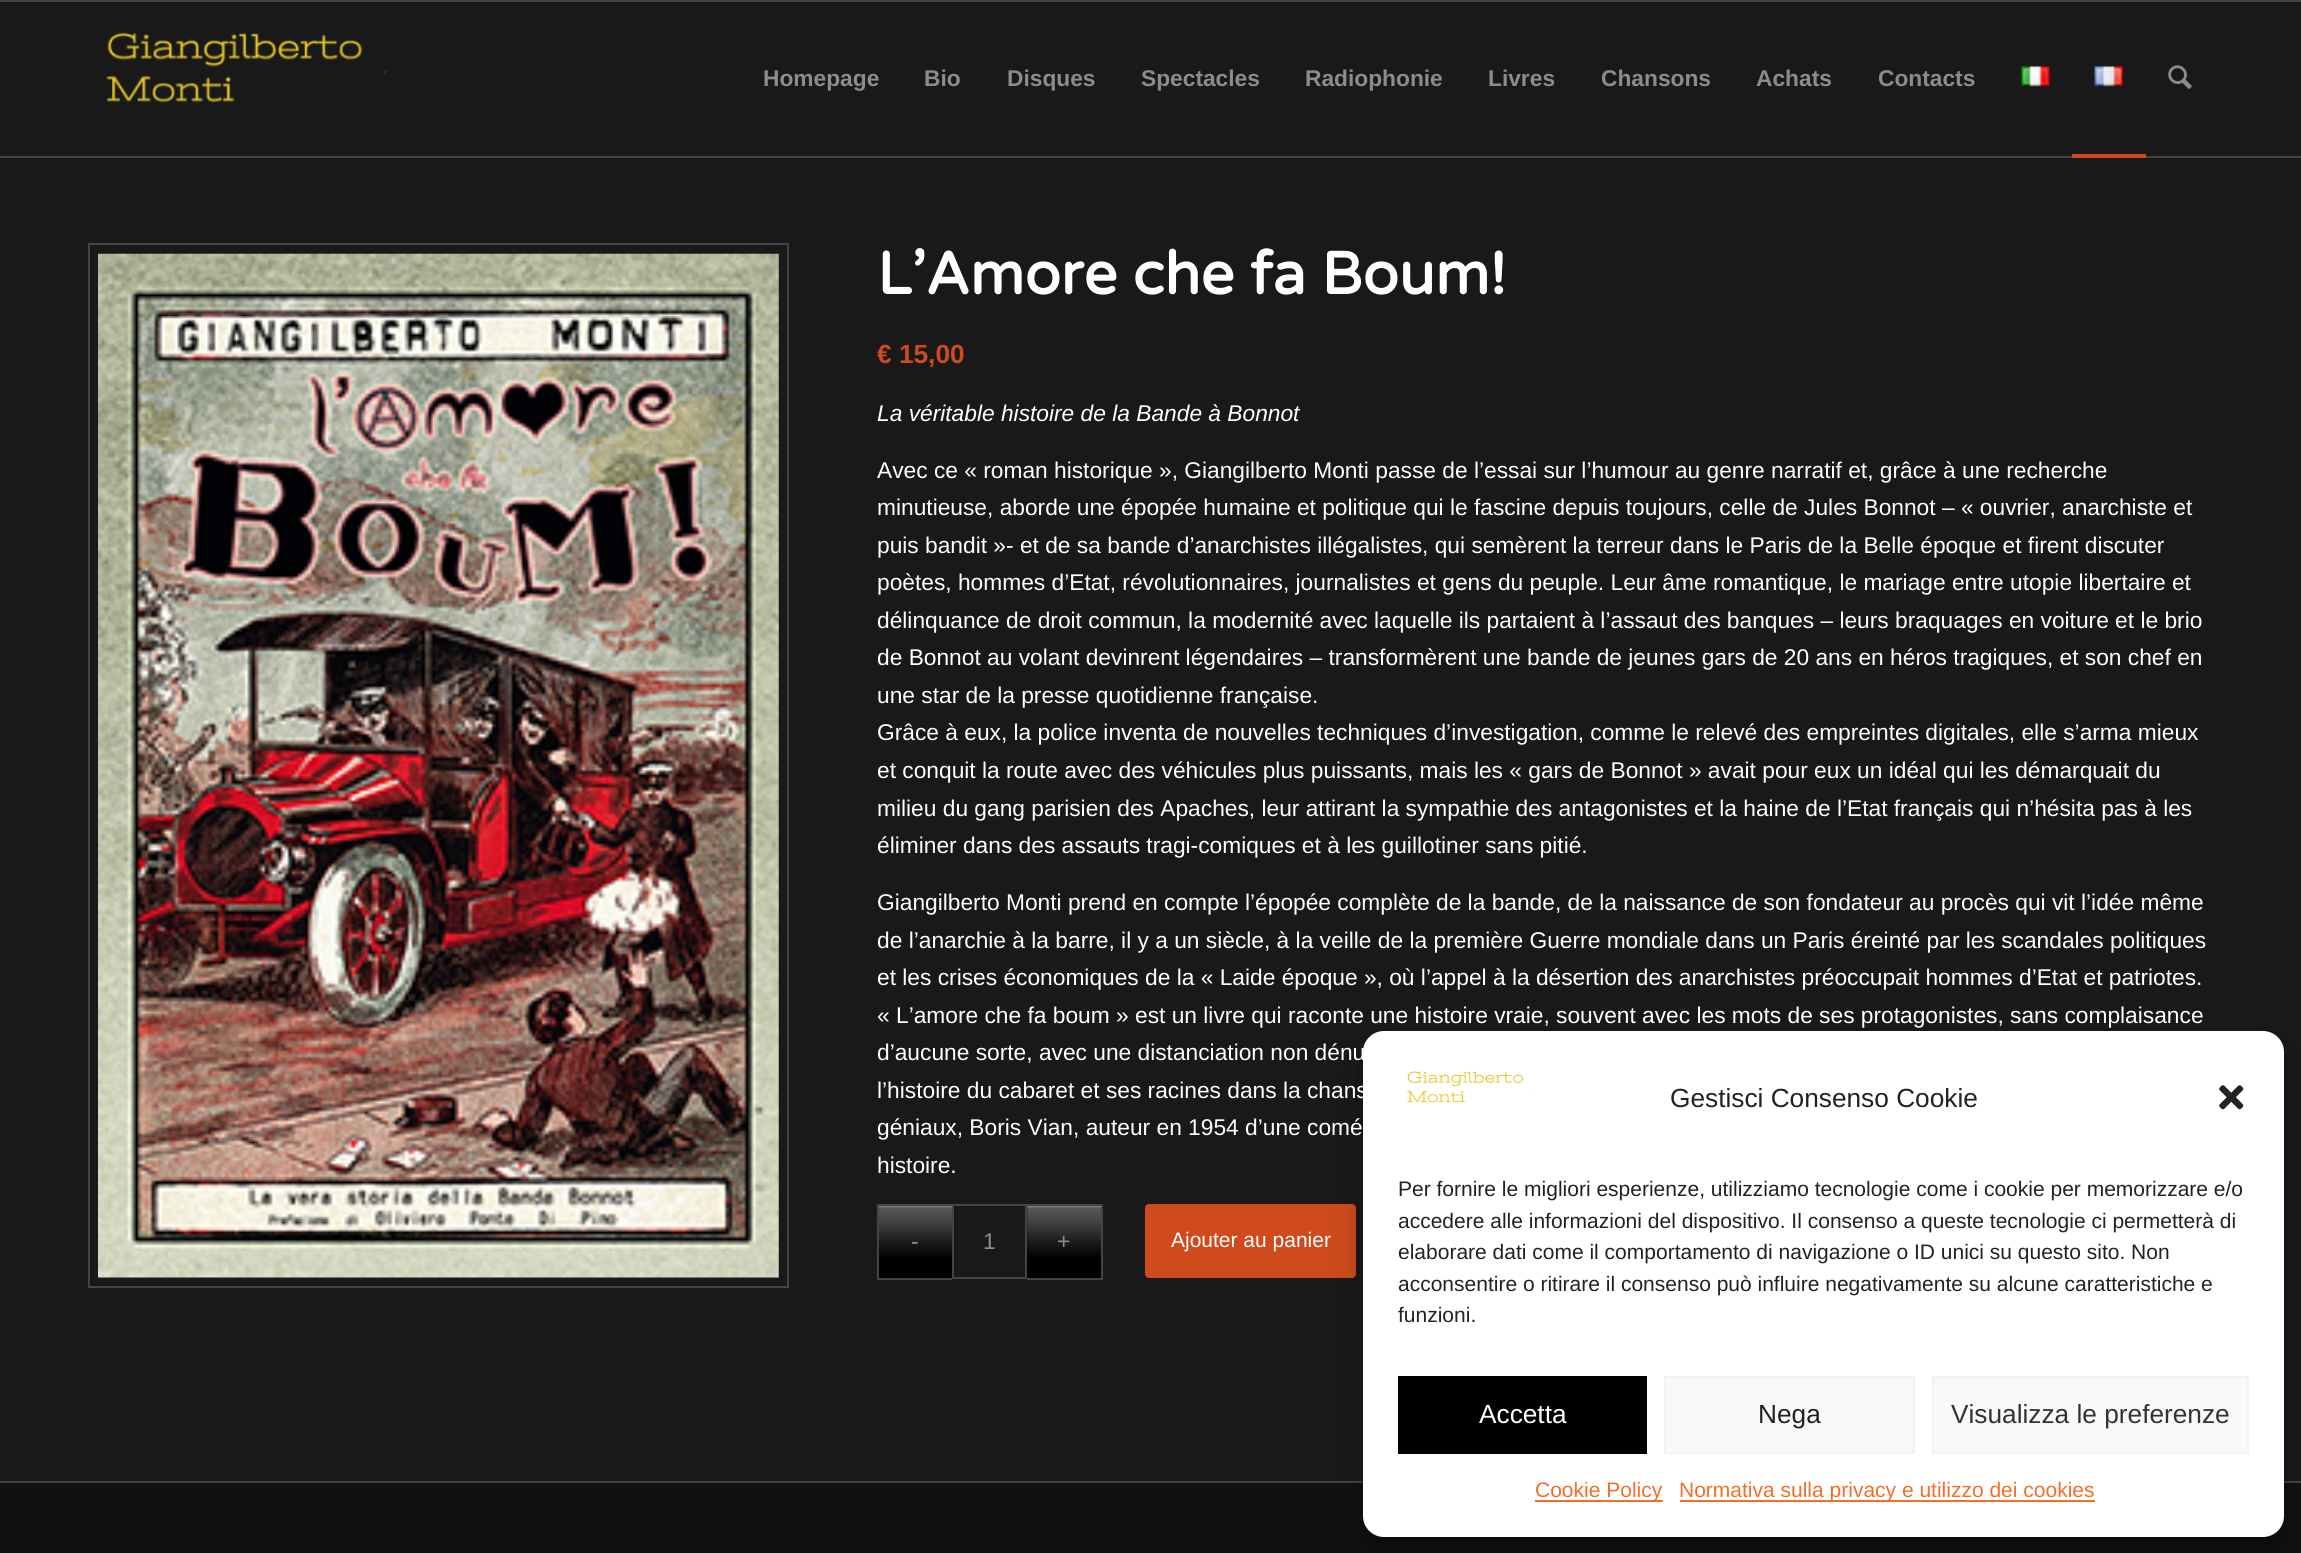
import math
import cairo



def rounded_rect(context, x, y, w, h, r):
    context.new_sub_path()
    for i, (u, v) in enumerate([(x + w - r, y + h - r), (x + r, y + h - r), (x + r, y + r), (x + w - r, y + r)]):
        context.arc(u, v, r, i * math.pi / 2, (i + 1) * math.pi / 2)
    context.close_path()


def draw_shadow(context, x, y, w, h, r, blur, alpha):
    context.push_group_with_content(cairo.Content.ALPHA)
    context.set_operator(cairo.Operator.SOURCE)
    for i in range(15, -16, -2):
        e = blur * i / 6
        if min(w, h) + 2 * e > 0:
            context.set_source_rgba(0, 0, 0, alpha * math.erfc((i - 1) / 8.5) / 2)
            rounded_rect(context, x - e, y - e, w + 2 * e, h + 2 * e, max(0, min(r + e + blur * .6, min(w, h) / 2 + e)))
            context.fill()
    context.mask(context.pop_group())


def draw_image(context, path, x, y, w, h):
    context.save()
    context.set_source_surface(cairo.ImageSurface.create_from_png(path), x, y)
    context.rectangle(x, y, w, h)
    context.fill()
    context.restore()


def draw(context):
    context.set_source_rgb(25 / 255, 25 / 255, 25 / 255)
    context.paint()
    context.set_source_rgb(68 / 255, 68 / 255, 68 / 255)
    context.rectangle(0, 0, 2301, 2)
    context.fill()
    context.rectangle(0, 156, 2301, 2)
    context.fill()
    draw_image(context, "images/1.png", 106, 32, 281, 71)
    draw_image(context, "images/2.png", 2020, 66, 30, 21)
    draw_image(context, "images/3.png", 2094, 66, 30, 21)
    context.set_source_rgb(207 / 255, 74 / 255, 29 / 255)
    context.rectangle(2072, 154, 74, 4)
    context.fill()
    draw_image(context, "images/4.png", 2168, 65, 24, 24)
    context.rectangle(89, 244, 699, 1043)
    context.set_source_rgb(68 / 255, 68 / 255, 68 / 255)
    context.stroke()
    draw_image(context, "images/5.png", 98, 253, 681, 1025)
    context.set_source_rgb(0, 0, 0)
    context.rectangle(879, 1206, 73, 72)
    context.fill()
    draw_image(context, "images/6.png", 876, 1206, 76, 51)
    context.rectangle(953, 1205, 73, 73)
    context.set_source_rgb(68 / 255, 68 / 255, 68 / 255)
    context.stroke()
    context.set_source_rgb(0, 0, 0)
    context.rectangle(1027, 1206, 74, 72)
    context.fill()
    draw_image(context, "images/7.png", 1027, 1206, 74, 51)
    context.set_source_rgb(68 / 255, 68 / 255, 68 / 255)
    context.rectangle(877, 1204, 75, 2)
    context.fill()
    context.rectangle(877, 1278, 75, 2)
    context.fill()
    context.rectangle(877, 1204, 2, 75)
    context.fill()
    context.rectangle(1027, 1204, 76, 2)
    context.fill()
    context.rectangle(1101, 1204, 2, 75)
    context.fill()
    context.rectangle(1027, 1278, 76, 2)
    context.fill()
    context.set_source_rgb(207 / 255, 74 / 255, 29 / 255)
    rounded_rect(context, 1145, 1204, 211, 74, 4)
    context.fill()
    context.set_source_rgb(17 / 255, 17 / 255, 17 / 255)
    context.rectangle(0, 1483, 2301, 70)
    context.fill()
    context.set_source_rgb(68 / 255, 68 / 255, 68 / 255)
    context.rectangle(0, 1481, 2301, 2)
    context.fill()
    context.set_source_rgb(0, 0, 0)
    draw_shadow(context, 1363, 1041, 921, 506, 21, 5, 0.23)
    draw_shadow(context, 1363, 1048, 921, 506, 21, 17.5, 0.19)
    context.set_source_rgb(1, 1, 1)
    rounded_rect(context, 1363, 1031, 921, 506, 21)
    context.fill()
    draw_image(context, "images/8.png", 1407, 1071, 128, 32)
    draw_image(context, "images/9.png", 2219, 1085, 25, 25)
    context.set_source_rgb(0, 0, 0)
    context.rectangle(1398, 1376, 249, 78)
    context.fill()
    context.set_source_rgb(249 / 255, 249 / 255, 249 / 255)
    context.rectangle(1665, 1377, 249, 76)
    context.fill_preserve()
    context.set_source_rgb(242 / 255, 242 / 255, 242 / 255)
    context.stroke()
    context.set_source_rgb(249 / 255, 249 / 255, 249 / 255)
    context.rectangle(1933, 1377, 315, 76)
    context.fill_preserve()
    context.set_source_rgb(242 / 255, 242 / 255, 242 / 255)
    context.stroke()
    context.set_source_rgb(245 / 255, 110 / 255, 40 / 255)
    context.rectangle(1535, 1500, 128, 2)
    context.fill()
    context.rectangle(1680, 1500, 415, 2)
    context.fill()
    context.select_font_face("Liberation Sans", cairo.FontSlant.NORMAL, cairo.FontWeight.BOLD)
    context.set_font_size(22.75)
    context.set_source_rgb(140 / 255, 140 / 255, 140 / 255)
    context.move_to(763, 86)
    context.show_text("Homepage")
    context.move_to(924, 86)
    context.show_text("Bio")
    context.move_to(1007, 86)
    context.show_text("Disques")
    context.move_to(1141, 86)
    context.show_text("Spectacles")
    context.move_to(1305, 86)
    context.show_text("Radiophonie")
    context.move_to(1488, 86)
    context.show_text("Livres")
    context.move_to(1601, 86)
    context.show_text("Chansons")
    context.move_to(1756, 86)
    context.show_text("Achats")
    context.move_to(1878, 86)
    context.show_text("Contacts")
    context.select_font_face("Varela Round", cairo.FontSlant.NORMAL, cairo.FontWeight.BOLD)
    context.set_font_size(59.5)
    context.set_source_rgb(1, 1, 1)
    context.move_to(877, 294)
    context.show_text("L’Amore che fa Boum!")
    context.select_font_face("Liberation Sans", cairo.FontSlant.NORMAL, cairo.FontWeight.BOLD)
    context.set_font_size(26.25)
    context.set_source_rgb(207 / 255, 74 / 255, 29 / 255)
    context.move_to(877, 363)
    context.show_text("€ 15,00")
    context.select_font_face("Liberation Sans", cairo.FontSlant.ITALIC)
    context.set_font_size(22.75)
    context.set_source_rgb(1, 1, 1)
    context.move_to(877, 421)
    context.show_text("La véritable histoire de la Bande à Bonnot")
    context.select_font_face("Liberation Sans")
    context.move_to(877, 478)
    context.show_text("Avec ce « roman historique », Giangilberto Monti passe de l’essai sur l’humour au genre narratif et, grâce à une recherche")
    context.move_to(877, 515)
    context.show_text("minutieuse, aborde une épopée humaine et politique qui le fascine depuis toujours, celle de Jules Bonnot – « ouvrier, anarchiste et")
    context.move_to(877, 553)
    context.show_text("puis bandit »- et de sa bande d’anarchistes illégalistes, qui semèrent la terreur dans le Paris de la Belle époque et firent discuter")
    context.move_to(877, 590)
    context.show_text("poètes, hommes d’Etat, révolutionnaires, journalistes et gens du peuple. Leur âme romantique, le mariage entre utopie libertaire et")
    context.move_to(877, 628)
    context.show_text("délinquance de droit commun, la modernité avec laquelle ils partaient à l’assaut des banques – leurs braquages en voiture et le brio")
    context.move_to(877, 665)
    context.show_text("de Bonnot au volant devinrent légendaires – transformèrent une bande de jeunes gars de 20 ans en héros tragiques, et son chef en")
    context.move_to(877, 703)
    context.show_text("une star de la presse quotidienne française.")
    context.move_to(877, 740)
    context.show_text("Grâce à eux, la police inventa de nouvelles techniques d’investigation, comme le relevé des empreintes digitales, elle s’arma mieux")
    context.move_to(877, 778)
    context.show_text("et conquit la route avec des véhicules plus puissants, mais les « gars de Bonnot » avait pour eux un idéal qui les démarquait du")
    context.move_to(877, 816)
    context.show_text("milieu du gang parisien des Apaches, leur attirant la sympathie des antagonistes et la haine de l’Etat français qui n’hésita pas à les")
    context.move_to(877, 853)
    context.show_text("éliminer dans des assauts tragi-comiques et à les guillotiner sans pitié.")
    context.move_to(877, 910)
    context.show_text("Giangilberto Monti prend en compte l’épopée complète de la bande, de la naissance de son fondateur au procès qui vit l’idée même")
    context.move_to(877, 948)
    context.show_text("de l’anarchie à la barre, il y a un siècle, à la veille de la première Guerre mondiale dans un Paris éreinté par les scandales politiques")
    context.move_to(877, 985)
    context.show_text("et les crises économiques de la « Laide époque », où l’appel à la désertion des anarchistes préoccupait hommes d’Etat et patriotes.")
    context.move_to(877, 1023)
    context.show_text("« L’amore che fa boum » est un livre qui raconte une histoire vraie, souvent avec les mots de ses protagonistes, sans complaisance")
    context.move_to(877, 1060)
    context.show_text("d’aucune sorte, avec une distanciation non dénu")
    context.move_to(877, 1098)
    context.show_text("l’histoire du cabaret et ses racines dans la chans")
    context.move_to(877, 1135)
    context.show_text("géniaux, Boris Vian, auteur en 1954 d’une comé")
    context.move_to(877, 1173)
    context.show_text("histoire.")
    context.set_source_rgb(140 / 255, 140 / 255, 140 / 255)
    context.move_to(983, 1249)
    context.show_text("1")
    context.set_font_size(23)
    context.move_to(911, 1249)
    context.show_text("-")
    context.move_to(1057, 1249)
    context.show_text("+")
    context.set_font_size(21)
    context.set_source_rgb(1, 1, 1)
    context.move_to(1171, 1247)
    context.show_text("Ajouter au panier")
    context.set_font_size(26.25)
    context.set_source_rgb(34 / 255, 34 / 255, 34 / 255)
    context.move_to(1670, 1107)
    context.show_text("Gestisci Consenso Cookie")
    context.set_font_size(21)
    context.move_to(1398, 1196)
    context.show_text("Per fornire le migliori esperienze, utilizziamo tecnologie come i cookie per memorizzare e/o")
    context.move_to(1398, 1228)
    context.show_text("accedere alle informazioni del dispositivo. Il consenso a queste tecnologie ci permetterà di")
    context.move_to(1398, 1259)
    context.show_text("elaborare dati come il comportamento di navigazione o ID unici su questo sito. Non")
    context.move_to(1398, 1291)
    context.show_text("acconsentire o ritirare il consenso può influire negativamente su alcune caratteristiche e")
    context.move_to(1398, 1322)
    context.show_text("funzioni.")
    context.set_font_size(26.25)
    context.set_source_rgb(1, 1, 1)
    context.move_to(1479, 1423)
    context.show_text("Accetta")
    context.set_source_rgb(34 / 255, 34 / 255, 34 / 255)
    context.move_to(1758, 1423)
    context.show_text("Nega")
    context.set_source_rgb(51 / 255, 51 / 255, 51 / 255)
    context.move_to(1951, 1423)
    context.show_text("Visualizza le preferenze")
    context.set_font_size(21)
    context.set_source_rgb(245 / 255, 110 / 255, 40 / 255)
    context.move_to(1535, 1497)
    context.show_text("Cookie Policy")
    context.move_to(1679, 1497)
    context.show_text("Normativa sulla privacy e utilizzo dei cookies")


surface = cairo.ImageSurface(cairo.Format.RGB24, 2301, 1553)
context = cairo.Context(surface)
options = cairo.FontOptions()
options.set_hint_metrics(cairo.HintMetrics.OFF)
options.set_hint_style(cairo.HintStyle.NONE)
context.set_font_options(options)
context.set_miter_limit(4)
draw(context)
surface.write_to_png("out.png")
